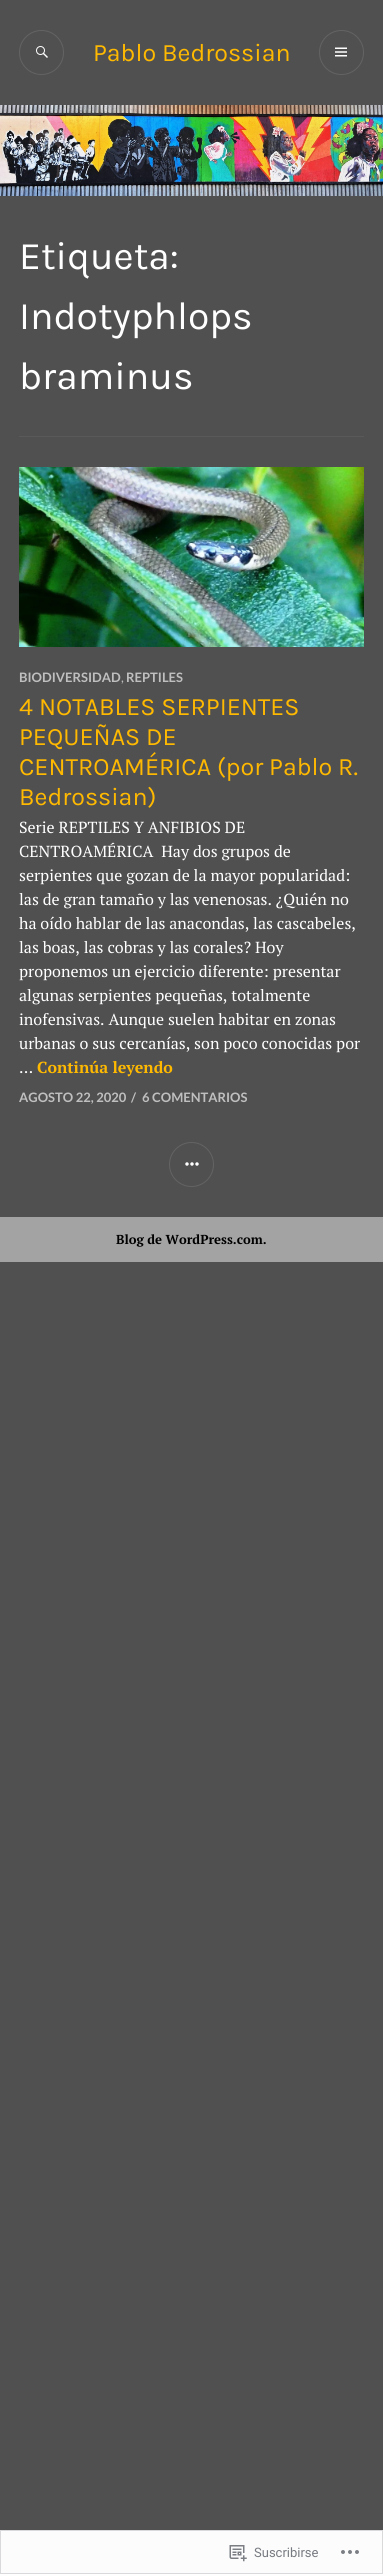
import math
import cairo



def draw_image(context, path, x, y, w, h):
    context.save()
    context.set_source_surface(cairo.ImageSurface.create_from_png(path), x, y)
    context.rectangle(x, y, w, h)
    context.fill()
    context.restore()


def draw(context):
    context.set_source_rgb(80 / 255, 80 / 255, 80 / 255)
    context.paint()
    context.arc(41.5, 52.5, 22, 0, 2 * math.pi)
    context.set_source_rgb(99 / 255, 99 / 255, 99 / 255)
    context.set_line_width(1)
    context.stroke()
    draw_image(context, "images/1.png", 36, 46, 12, 12)
    context.arc(341.5, 52.5, 22, 0, 2 * math.pi)
    context.stroke()
    draw_image(context, "images/2.png", 335, 47, 12, 10)
    draw_image(context, "images/3.png", 0, 105, 383, 91)
    context.set_source_rgb(89 / 255, 89 / 255, 89 / 255)
    context.rectangle(19, 436, 345, 1)
    context.fill()
    draw_image(context, "images/4.png", 19, 467, 345, 180)
    context.arc(191.5, 1164.5, 22, 0, 2 * math.pi)
    context.set_source_rgb(99 / 255, 99 / 255, 99 / 255)
    context.stroke()
    draw_image(context, "images/5.png", 185, 1162, 14, 4)
    context.set_source_rgb(163 / 255, 163 / 255, 163 / 255)
    context.rectangle(0, 1217, 383, 45)
    context.fill()
    context.set_source_rgb(252 / 255, 252 / 255, 252 / 255)
    context.rectangle(0.5, 2530.5, 382, 43)
    context.fill_preserve()
    context.set_source_rgb(217 / 255, 217 / 255, 219 / 255)
    context.stroke()
    draw_image(context, "images/6.png", 229, 2545, 18, 17)
    draw_image(context, "images/7.png", 341, 2550, 18, 4)
    context.select_font_face("Karla")
    context.set_font_size(25)
    context.set_source_rgb(1, 185 / 255, 0)
    context.move_to(93, 61)
    context.show_text("Pablo Bedrossian")
    context.set_font_size(39)
    context.set_source_rgb(1, 1, 1)
    context.move_to(19, 269)
    context.show_text("Etiqueta:")
    context.move_to(19, 329)
    context.show_text("Indotyphlops")
    context.move_to(19, 389)
    context.show_text("braminus")
    context.select_font_face("Lato", cairo.FontSlant.NORMAL, cairo.FontWeight.BOLD)
    context.set_font_size(13)
    context.set_source_rgb(191 / 255, 191 / 255, 191 / 255)
    context.move_to(19, 682)
    context.show_text("BIODIVERSIDAD")
    context.select_font_face("Lato")
    context.move_to(121, 682)
    context.show_text(",")
    context.select_font_face("Lato", cairo.FontSlant.NORMAL, cairo.FontWeight.BOLD)
    context.move_to(126, 682)
    context.show_text("REPTILES")
    context.select_font_face("Karla")
    context.set_font_size(25)
    context.set_source_rgb(1, 185 / 255, 0)
    context.move_to(19, 715)
    context.show_text("4 NOTABLES SERPIENTES")
    context.move_to(19, 745)
    context.show_text("PEQUEÑAS DE")
    context.move_to(19, 775)
    context.show_text("CENTROAMÉRICA (por Pablo R.")
    context.move_to(19, 805)
    context.show_text("Bedrossian)")
    context.select_font_face("PT Serif")
    context.set_font_size(16)
    context.set_source_rgb(1, 1, 1)
    context.move_to(19, 833)
    context.show_text("Serie REPTILES Y ANFIBIOS DE")
    context.move_to(19, 857)
    context.show_text("CENTROAMÉRICA  Hay dos grupos de")
    context.move_to(19, 881)
    context.show_text("serpientes que gozan de la mayor popularidad:")
    context.move_to(19, 905)
    context.show_text("las de gran tamaño y las venenosas. ¿Quién no")
    context.move_to(19, 929)
    context.show_text("ha oído hablar de las anacondas, las cascabeles,")
    context.move_to(19, 953)
    context.show_text("las boas, las cobras y las corales? Hoy")
    context.move_to(19, 977)
    context.show_text("proponemos un ejercicio diferente: presentar")
    context.move_to(19, 1001)
    context.show_text("algunas serpientes pequeñas, totalmente")
    context.move_to(19, 1025)
    context.show_text("inofensivas. Aunque suelen habitar en zonas")
    context.move_to(19, 1049)
    context.show_text("urbanas o sus cercanías, son poco conocidas por")
    context.move_to(19, 1073)
    context.show_text("…")
    context.select_font_face("PT Serif", cairo.FontSlant.NORMAL, cairo.FontWeight.BOLD)
    context.set_source_rgb(1, 185 / 255, 0)
    context.move_to(37, 1073)
    context.show_text("Continúa leyendo")
    context.select_font_face("Lato", cairo.FontSlant.NORMAL, cairo.FontWeight.BOLD)
    context.set_font_size(13)
    context.set_source_rgb(191 / 255, 191 / 255, 191 / 255)
    context.move_to(19, 1102)
    context.show_text("AGOSTO 22, 2020")
    context.move_to(131, 1102)
    context.show_text("/")
    context.move_to(142, 1102)
    context.show_text("6 COMENTARIOS")
    context.select_font_face("PT Serif", cairo.FontSlant.NORMAL, cairo.FontWeight.BOLD)
    context.set_source_rgb(0, 0, 0)
    context.move_to(116, 1244)
    context.show_text("Blog de WordPress.com.")
    context.select_font_face("Roboto")
    context.set_source_rgb(119 / 255, 123 / 255, 129 / 255)
    context.move_to(254, 2557)
    context.show_text("Suscribirse")


surface = cairo.ImageSurface(cairo.Format.RGB24, 383, 2574)
context = cairo.Context(surface)
options = cairo.FontOptions()
options.set_hint_metrics(cairo.HintMetrics.OFF)
options.set_hint_style(cairo.HintStyle.NONE)
context.set_font_options(options)
context.set_miter_limit(4)
draw(context)
surface.write_to_png("out.png")
